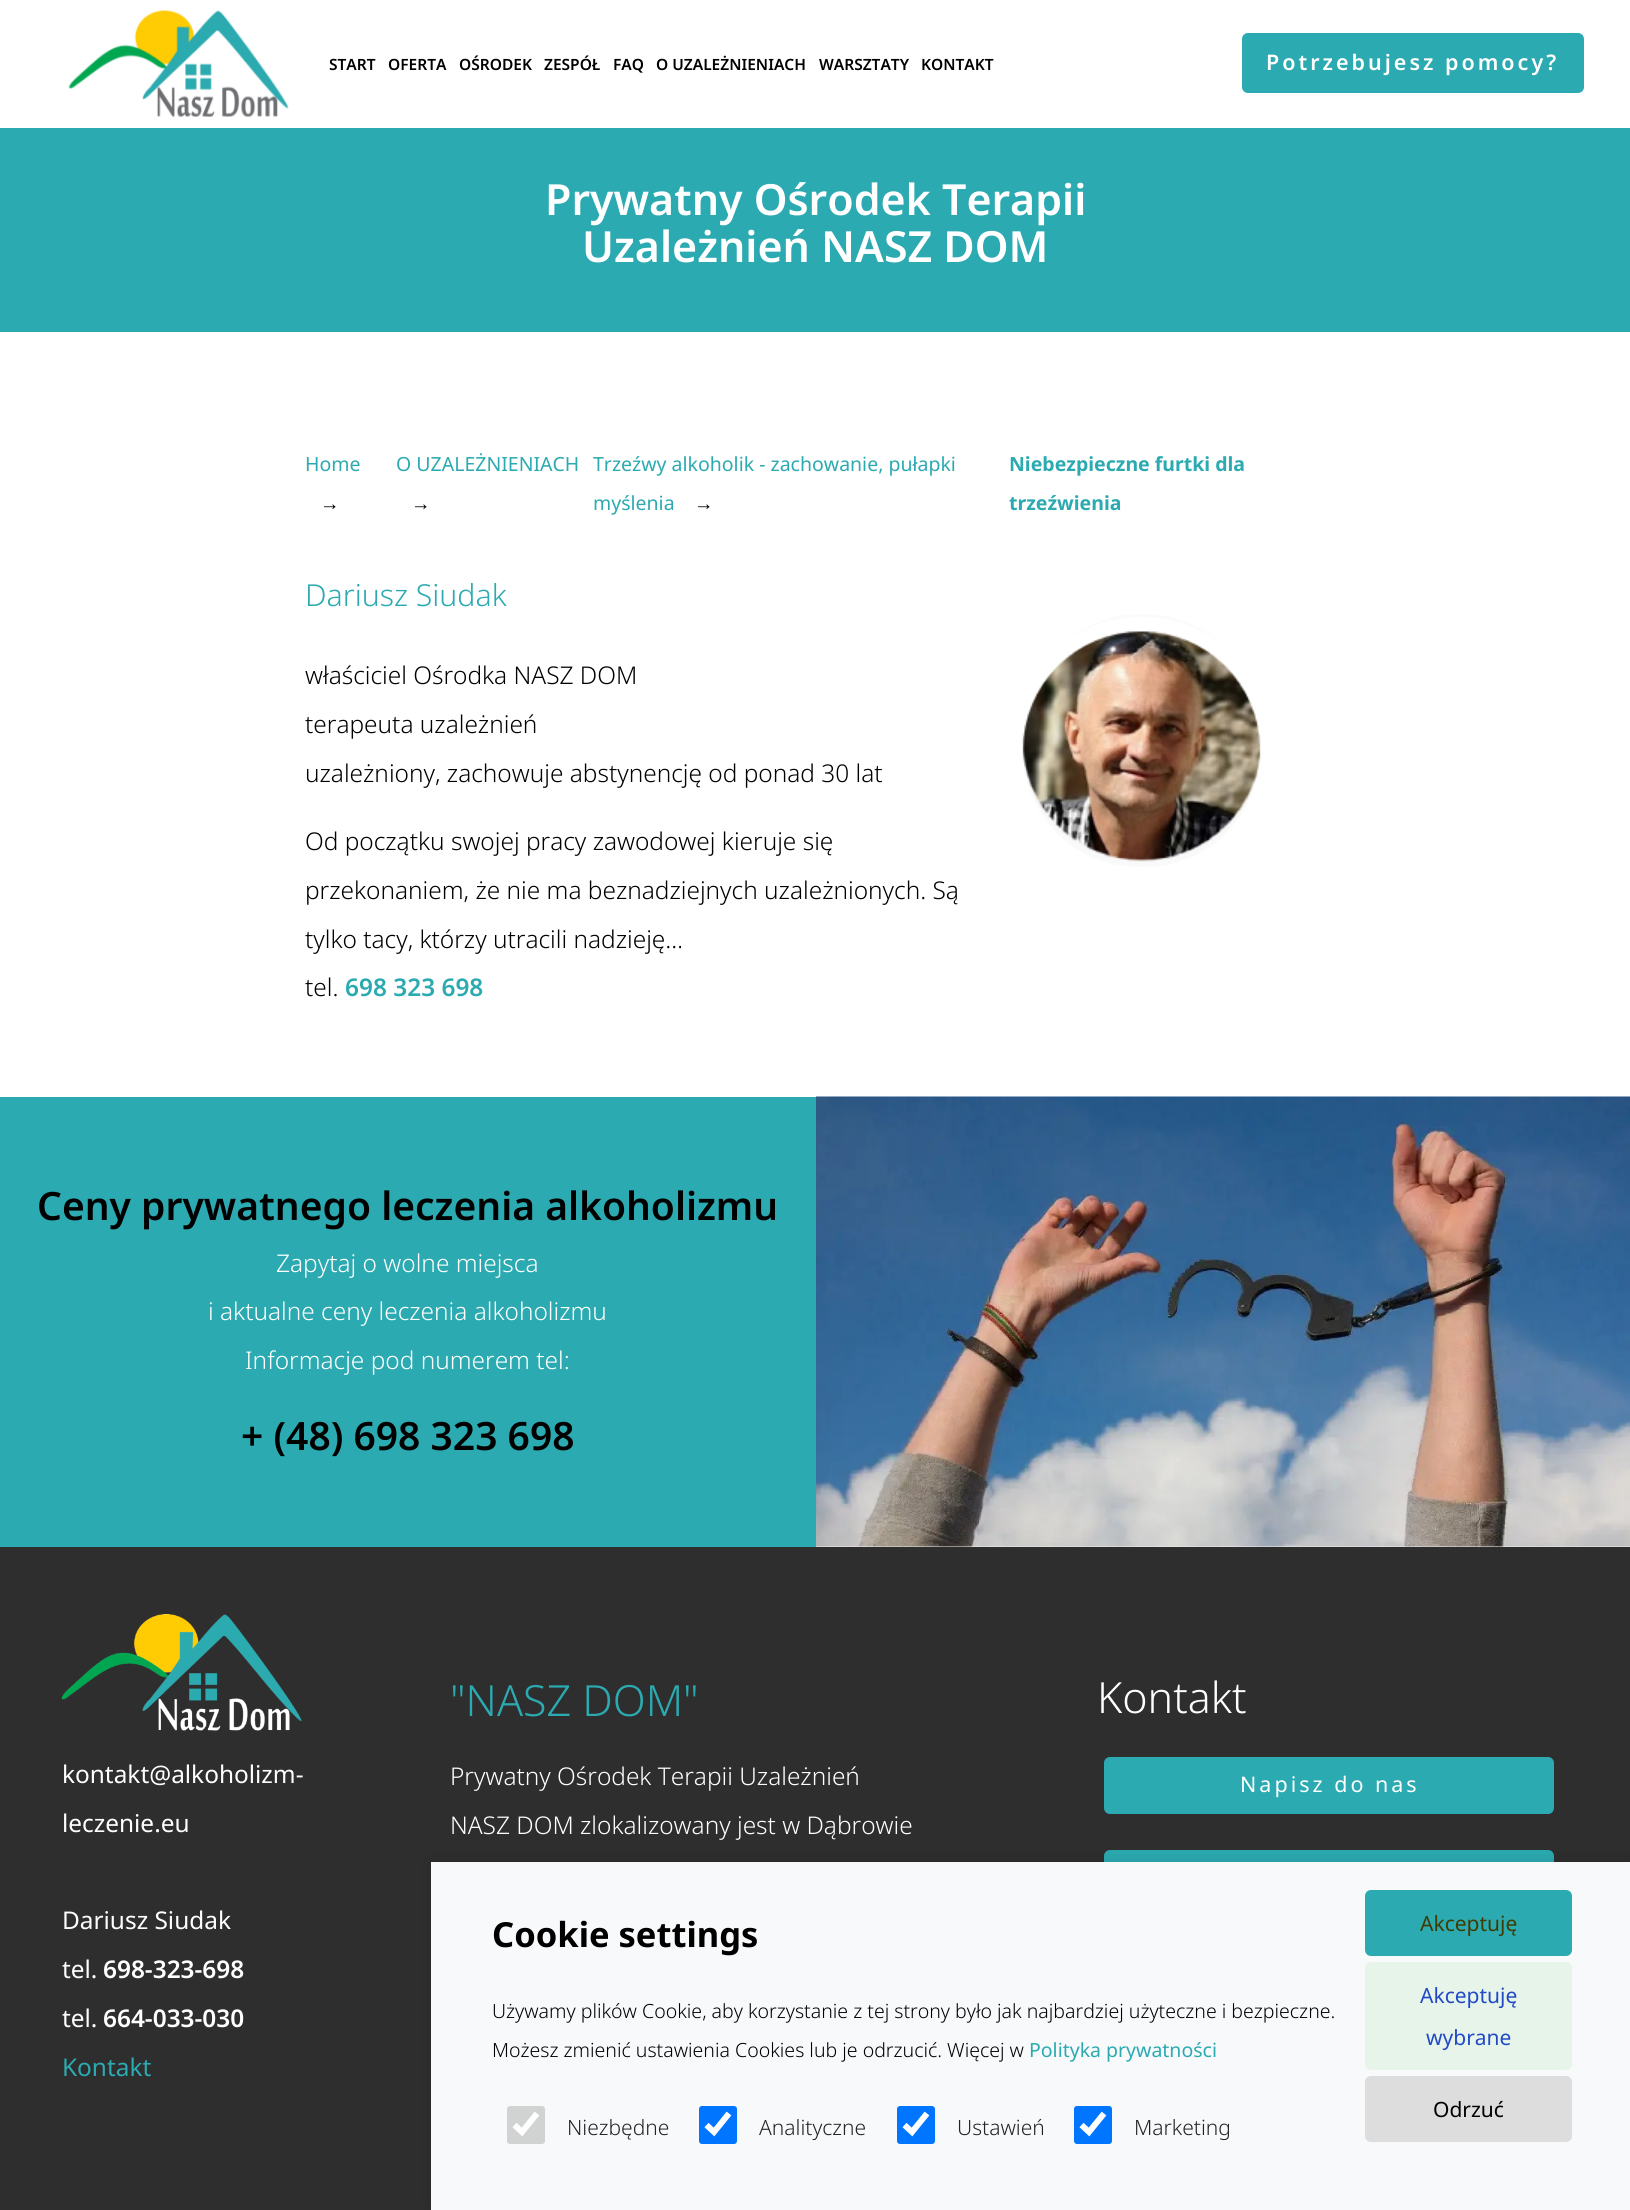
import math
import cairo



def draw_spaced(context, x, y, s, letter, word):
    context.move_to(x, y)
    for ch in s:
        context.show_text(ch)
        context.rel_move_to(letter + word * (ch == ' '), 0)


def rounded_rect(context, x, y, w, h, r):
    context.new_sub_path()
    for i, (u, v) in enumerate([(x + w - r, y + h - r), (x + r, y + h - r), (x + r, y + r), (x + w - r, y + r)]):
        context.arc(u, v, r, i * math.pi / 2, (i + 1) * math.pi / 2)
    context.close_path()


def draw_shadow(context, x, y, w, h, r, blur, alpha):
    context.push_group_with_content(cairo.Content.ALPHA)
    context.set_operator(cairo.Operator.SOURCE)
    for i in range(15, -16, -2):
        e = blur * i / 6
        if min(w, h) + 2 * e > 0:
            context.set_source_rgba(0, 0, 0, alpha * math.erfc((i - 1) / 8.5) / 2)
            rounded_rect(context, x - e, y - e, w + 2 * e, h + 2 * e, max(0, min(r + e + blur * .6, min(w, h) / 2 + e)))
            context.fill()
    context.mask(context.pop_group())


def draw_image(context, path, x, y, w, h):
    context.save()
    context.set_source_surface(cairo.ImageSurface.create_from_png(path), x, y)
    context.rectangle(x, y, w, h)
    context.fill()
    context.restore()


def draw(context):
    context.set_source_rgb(1, 1, 1)
    context.paint()
    draw_image(context, "images/1.png", 68, 10, 221, 107)
    context.set_source_rgb(43 / 255, 170 / 255, 177 / 255)
    rounded_rect(context, 1243, 34, 340, 58, 5)
    context.fill_preserve()
    context.stroke()
    context.rectangle(0, 128, 1630, 204)
    context.fill()
    draw_image(context, "images/2.png", 1022, 614, 239, 253)
    context.set_source_rgb(238 / 255, 238 / 255, 238 / 255)
    context.rectangle(816, 1546, 814, 1)
    context.fill()
    context.set_source_rgb(43 / 255, 170 / 255, 177 / 255)
    context.rectangle(0, 1097, 816, 450)
    context.fill()
    draw_image(context, "images/3.png", 816, 1096, 814, 451)
    context.set_source_rgb(46 / 255, 46 / 255, 46 / 255)
    context.rectangle(0, 1547, 1630, 663)
    context.fill()
    draw_image(context, "images/4.png", 61, 1614, 241, 117)
    context.set_source_rgb(43 / 255, 170 / 255, 177 / 255)
    rounded_rect(context, 1104, 1757, 450, 57, 6)
    context.fill()
    rounded_rect(context, 1104, 1850, 450, 57, 6)
    context.fill()
    context.set_source_rgb(0, 0, 0)
    draw_shadow(context, 431, 1859, 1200, 349, 0, 7.5, 0.1)
    context.set_source_rgb(248 / 255, 249 / 255, 250 / 255)
    context.rectangle(431, 1862, 1199, 348)
    context.fill()
    context.set_source_rgb(209 / 255, 210 / 255, 210 / 255)
    rounded_rect(context, 507, 2106, 38, 38, 3)
    context.fill()
    context.new_path()
    context.move_to(514.5, 2125)
    context.line_to(522, 2132)
    context.line_to(537, 2113.5)
    context.set_source_rgb(1, 1, 1)
    context.set_line_width(6)
    context.stroke()
    context.set_source_rgb(0, 117 / 255, 1)
    rounded_rect(context, 699, 2106, 38, 38, 3)
    context.fill()
    context.new_path()
    context.move_to(706.5, 2125)
    context.line_to(714, 2132)
    context.line_to(729, 2113.5)
    context.set_source_rgb(1, 1, 1)
    context.stroke()
    context.set_source_rgb(0, 117 / 255, 1)
    rounded_rect(context, 897, 2106, 38, 38, 3)
    context.fill()
    context.new_path()
    context.move_to(904.5, 2125)
    context.line_to(912, 2132)
    context.line_to(927, 2113.5)
    context.set_source_rgb(1, 1, 1)
    context.stroke()
    context.set_source_rgb(0, 117 / 255, 1)
    rounded_rect(context, 1074, 2106, 38, 38, 3)
    context.fill()
    context.new_path()
    context.move_to(1081.5, 2125)
    context.line_to(1089, 2132)
    context.line_to(1104, 2113.5)
    context.set_source_rgb(1, 1, 1)
    context.stroke()
    context.set_source_rgb(43 / 255, 170 / 255, 177 / 255)
    rounded_rect(context, 1365, 1890, 207, 66, 6)
    context.fill()
    context.set_source_rgb(230 / 255, 244 / 255, 234 / 255)
    rounded_rect(context, 1365, 1962, 207, 108, 6)
    context.fill()
    context.set_source_rgb(221 / 255, 221 / 255, 221 / 255)
    rounded_rect(context, 1365, 2076, 207, 66, 6)
    context.fill()
    context.select_font_face("Noto Sans SemiBold")
    context.set_font_size(15.5)
    context.set_source_rgb(0, 0, 0)
    context.move_to(329, 70)
    context.show_text("START")
    context.move_to(388, 70)
    context.show_text("OFERTA")
    context.move_to(459, 70)
    context.show_text("OŚRODEK")
    context.move_to(544, 70)
    context.show_text("ZESPÓŁ")
    context.move_to(613, 70)
    context.show_text("FAQ")
    context.move_to(656, 70)
    context.show_text("O UZALEŻNIENIACH")
    context.move_to(819, 70)
    context.show_text("WARSZTATY")
    context.move_to(921, 70)
    context.show_text("KONTAKT")
    context.set_font_size(21.5)
    context.set_source_rgb(1, 1, 1)
    draw_spaced(context, 1266, 70, "Potrzebujesz pomocy?", 3, 0)
    context.set_font_size(42.9)
    context.move_to(545, 215)
    context.show_text("Prywatny Ośrodek Terapii")
    context.move_to(582, 262)
    context.show_text("Uzależnień NASZ DOM")
    context.select_font_face("Noto Sans")
    context.set_font_size(19.5)
    context.set_source_rgb(43 / 255, 170 / 255, 177 / 255)
    context.move_to(305, 471)
    context.show_text("Home")
    context.select_font_face("Liberation Sans")
    context.set_source_rgb(0, 0, 0)
    context.move_to(320, 510)
    context.show_text("→")
    context.select_font_face("Noto Sans")
    context.set_source_rgb(43 / 255, 170 / 255, 177 / 255)
    context.move_to(396, 471)
    context.show_text("O UZALEŻNIENIACH")
    context.select_font_face("Liberation Sans")
    context.set_source_rgb(0, 0, 0)
    context.move_to(411, 510)
    context.show_text("→")
    context.select_font_face("Noto Sans")
    context.set_source_rgb(43 / 255, 170 / 255, 177 / 255)
    context.move_to(593, 471)
    context.show_text("Trzeźwy alkoholik - zachowanie, pułapki")
    context.move_to(593, 510)
    context.show_text("myślenia")
    context.select_font_face("Liberation Sans")
    context.set_source_rgb(0, 0, 0)
    context.move_to(694, 510)
    context.show_text("→")
    context.select_font_face("Noto Sans", cairo.FontSlant.NORMAL, cairo.FontWeight.BOLD)
    context.set_source_rgb(43 / 255, 170 / 255, 177 / 255)
    context.move_to(1009, 471)
    context.show_text("Niebezpieczne furtki dla")
    context.move_to(1009, 510)
    context.show_text("trzeźwienia")
    context.select_font_face("Noto Sans Light")
    context.set_font_size(30.25)
    context.move_to(305, 606)
    context.show_text("Dariusz Siudak")
    context.set_font_size(24.4)
    context.set_source_rgb(0, 0, 0)
    context.move_to(305, 684)
    context.show_text("właściciel Ośrodka NASZ DOM")
    context.move_to(305, 733)
    context.show_text("terapeuta uzależnień")
    context.move_to(305, 782)
    context.show_text("uzależniony, zachowuje abstynencję od ponad 30 lat")
    context.move_to(305, 850)
    context.show_text("Od początku swojej pracy zawodowej kieruje się")
    context.move_to(305, 899)
    context.show_text("przekonaniem, że nie ma beznadziejnych uzależnionych. Są")
    context.move_to(305, 948)
    context.show_text("tylko tacy, którzy utracili nadzieję…")
    context.move_to(305, 996)
    context.show_text("tel.")
    context.select_font_face("Noto Sans SemiBold")
    context.set_source_rgb(43 / 255, 170 / 255, 177 / 255)
    context.move_to(345, 996)
    context.show_text("698 323 698")
    context.set_font_size(39)
    context.set_source_rgb(0, 0, 0)
    context.move_to(37, 1220)
    context.show_text("Ceny prywatnego leczenia alkoholizmu")
    context.select_font_face("Noto Sans Light")
    context.set_font_size(24.4)
    context.set_source_rgb(1, 1, 1)
    context.move_to(276, 1272)
    context.show_text("Zapytaj o wolne miejsca")
    context.move_to(208, 1320)
    context.show_text("i aktualne ceny leczenia alkoholizmu")
    context.move_to(245, 1369)
    context.show_text("Informacje pod numerem tel:")
    context.select_font_face("Noto Sans SemiBold")
    context.set_font_size(39)
    context.set_source_rgb(0, 0, 0)
    context.move_to(241, 1450)
    context.show_text("+ (48) 698 323 698")
    context.select_font_face("Noto Sans")
    context.set_font_size(24.4)
    context.set_source_rgb(1, 1, 1)
    context.move_to(62, 1783)
    context.show_text("kontakt@alkoholizm-")
    context.move_to(62, 1832)
    context.show_text("leczenie.eu")
    context.move_to(62, 1929)
    context.show_text("Dariusz Siudak")
    context.move_to(62, 1978)
    context.show_text("tel.")
    context.select_font_face("Noto Sans SemiBold")
    context.move_to(103, 1978)
    context.show_text("698-323-698")
    context.select_font_face("Noto Sans")
    context.move_to(62, 2027)
    context.show_text("tel.")
    context.select_font_face("Noto Sans SemiBold")
    context.move_to(103, 2027)
    context.show_text("664-033-030")
    context.select_font_face("Noto Sans")
    context.set_source_rgb(43 / 255, 170 / 255, 177 / 255)
    context.move_to(62, 2076)
    context.show_text("Kontakt")
    context.select_font_face("Noto Sans Light")
    context.set_font_size(42.9)
    context.move_to(450, 1716)
    context.show_text("\"NASZ DOM\"")
    context.set_font_size(24.4)
    context.set_source_rgb(1, 1, 1)
    context.move_to(450, 1785)
    context.show_text("Prywatny Ośrodek Terapii Uzależnień")
    context.move_to(450, 1834)
    context.show_text("NASZ DOM zlokalizowany jest w Dąbrowie")
    context.set_font_size(42.9)
    context.move_to(1097, 1713)
    context.show_text("Kontakt")
    context.select_font_face("Noto Sans")
    context.set_font_size(21.5)
    draw_spaced(context, 1240, 1792, "Napisz do nas", 3, 0)
    context.select_font_face("Noto Sans", cairo.FontSlant.NORMAL, cairo.FontWeight.BOLD)
    context.set_font_size(34.5)
    context.set_source_rgb(0, 0, 0)
    context.move_to(492, 1947)
    context.show_text("Cookie settings")
    context.select_font_face("Noto Sans Light")
    context.set_font_size(19.5)
    context.move_to(492, 2018)
    context.show_text("Używamy plików Cookie, aby korzystanie z tej strony było jak najbardziej użyteczne i bezpieczne.")
    context.move_to(492, 2057)
    context.show_text("Możesz zmienić ustawienia Cookies lub je odrzucić. Więcej w")
    context.select_font_face("Noto Sans")
    context.set_source_rgb(43 / 255, 170 / 255, 177 / 255)
    context.move_to(1029, 2057)
    context.show_text("Polityka prywatności")
    context.select_font_face("Noto Sans Light")
    context.set_font_size(21)
    context.set_source_rgb(35 / 255, 35 / 255, 35 / 255)
    context.move_to(567, 2135)
    context.show_text("Niezbędne")
    context.move_to(759, 2135)
    context.show_text("Analityczne")
    context.move_to(957, 2135)
    context.show_text("Ustawień")
    context.move_to(1134, 2135)
    context.show_text("Marketing")
    context.select_font_face("Noto Sans")
    context.set_source_rgb(63 / 255, 60 / 255, 3 / 255)
    context.move_to(1420, 1931)
    context.show_text("Akceptuję")
    context.set_source_rgb(34 / 255, 74 / 255, 199 / 255)
    context.move_to(1420, 2003)
    context.show_text("Akceptuję")
    context.move_to(1426, 2045)
    context.show_text("wybrane")
    context.set_source_rgb(0, 0, 0)
    context.move_to(1433, 2117)
    context.show_text("Odrzuć")


surface = cairo.ImageSurface(cairo.Format.RGB24, 1630, 2210)
context = cairo.Context(surface)
options = cairo.FontOptions()
options.set_hint_metrics(cairo.HintMetrics.OFF)
options.set_hint_style(cairo.HintStyle.NONE)
context.set_font_options(options)
context.set_miter_limit(4)
draw(context)
surface.write_to_png("out.png")
